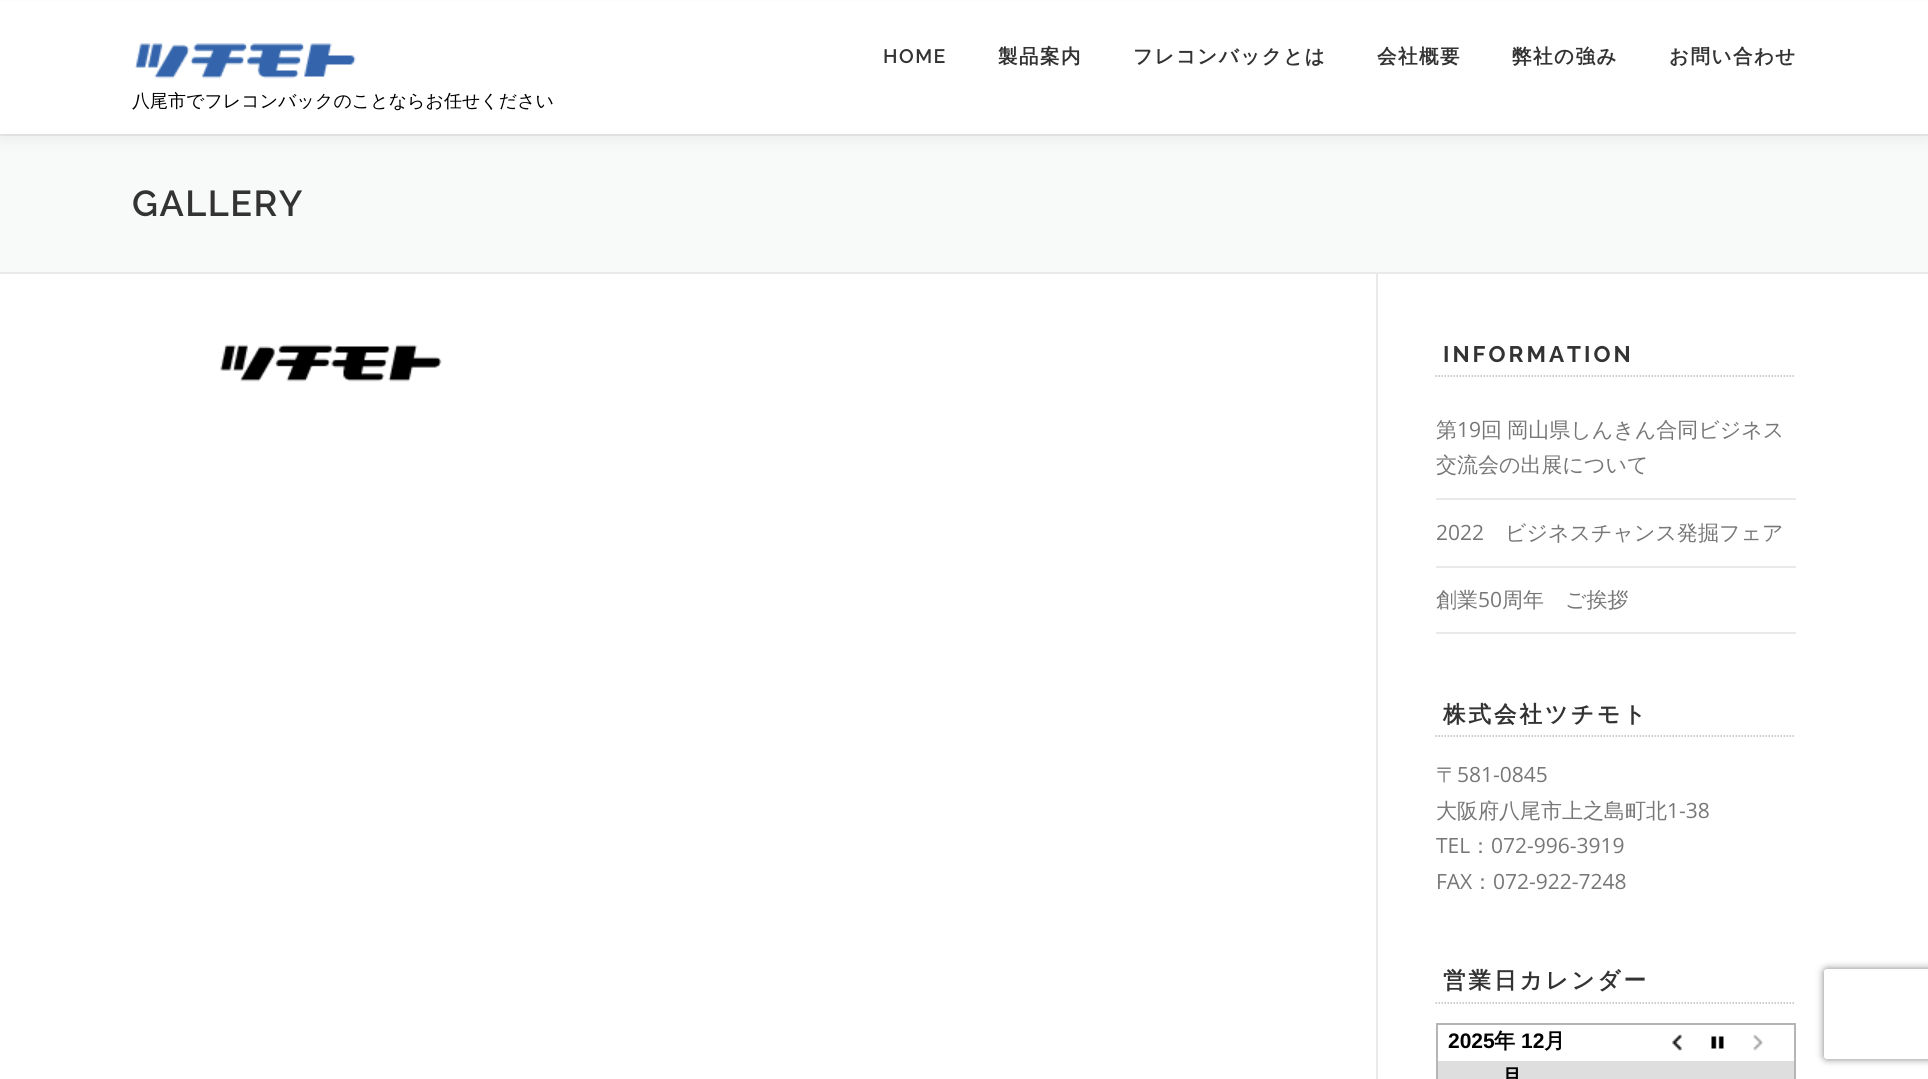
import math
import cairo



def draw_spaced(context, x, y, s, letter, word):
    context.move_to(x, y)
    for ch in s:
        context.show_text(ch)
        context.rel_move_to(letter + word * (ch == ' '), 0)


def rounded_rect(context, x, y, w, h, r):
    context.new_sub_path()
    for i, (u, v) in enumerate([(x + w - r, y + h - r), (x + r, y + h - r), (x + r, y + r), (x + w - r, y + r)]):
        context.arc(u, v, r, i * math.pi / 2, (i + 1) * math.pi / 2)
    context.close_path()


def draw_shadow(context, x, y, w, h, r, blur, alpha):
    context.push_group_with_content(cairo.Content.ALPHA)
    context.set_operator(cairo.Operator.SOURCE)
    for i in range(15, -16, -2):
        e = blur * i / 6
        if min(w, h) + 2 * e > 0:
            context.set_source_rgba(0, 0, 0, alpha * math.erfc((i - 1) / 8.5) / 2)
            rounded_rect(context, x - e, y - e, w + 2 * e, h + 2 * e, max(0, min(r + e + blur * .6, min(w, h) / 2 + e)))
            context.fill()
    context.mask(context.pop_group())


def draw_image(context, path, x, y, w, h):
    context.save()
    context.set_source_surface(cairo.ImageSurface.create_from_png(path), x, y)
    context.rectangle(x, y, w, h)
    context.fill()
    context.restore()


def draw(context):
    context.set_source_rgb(1, 1, 1)
    context.paint()
    context.set_source_rgb(248 / 255, 249 / 255, 249 / 255)
    context.rectangle(0, 136, 1928, 136)
    context.fill()
    context.set_source_rgb(233 / 255, 233 / 255, 233 / 255)
    context.rectangle(0, 134, 1928, 2)
    context.fill()
    context.set_source_rgb(50 / 255, 50 / 255, 50 / 255)
    draw_shadow(context, 0, 8, 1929, 133, 0, 7.5, 0.06)
    context.set_source_rgb(1, 1, 1)
    context.rectangle(0, 2, 1928, 132)
    context.fill()
    draw_image(context, "images/1.png", 135, 43, 221, 36)
    context.set_source_rgb(233 / 255, 233 / 255, 233 / 255)
    context.rectangle(0, 272, 1928, 2)
    context.fill()
    draw_image(context, "images/2.png", 220, 344, 222, 38)
    context.rectangle(1376, 273, 2, 806)
    context.fill()
    context.new_path()
    context.move_to(1435.5, 376)
    context.line_to(1795.5, 376)
    context.set_source_rgb(187 / 255, 187 / 255, 187 / 255)
    context.set_line_width(1.5)
    context.set_dash([1.5, 1.5])
    context.stroke()
    context.set_source_rgb(233 / 255, 233 / 255, 233 / 255)
    context.rectangle(1436, 498, 360, 2)
    context.fill()
    context.rectangle(1436, 566, 360, 2)
    context.fill()
    context.rectangle(1436, 632, 360, 2)
    context.fill()
    context.new_path()
    context.move_to(1435.5, 736)
    context.line_to(1795.5, 736)
    context.set_source_rgb(187 / 255, 187 / 255, 187 / 255)
    context.stroke()
    context.new_path()
    context.move_to(1435.5, 1003)
    context.line_to(1795.5, 1003)
    context.stroke()
    context.set_source_rgb(181 / 255, 181 / 255, 182 / 255)
    context.rectangle(1436, 1023, 360, 2)
    context.fill()
    context.rectangle(1794, 1023, 2, 56)
    context.fill()
    context.rectangle(1436, 1023, 2, 56)
    context.fill()
    draw_image(context, "images/3.png", 1672, 1034, 10, 17)
    draw_image(context, "images/4.png", 1711, 1036, 13, 13)
    draw_image(context, "images/5.png", 1753, 1034, 10, 17)
    context.set_source_rgb(222 / 255, 222 / 255, 222 / 255)
    context.rectangle(1438, 1061, 356, 18)
    context.fill()
    context.save()
    context.set_fill_rule(cairo.FillRule.EVEN_ODD)
    context.new_path()
    context.move_to(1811, 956)
    context.line_to(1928, 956)
    context.line_to(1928, 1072)
    context.line_to(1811, 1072)
    context.close_path()
    context.move_to(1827, 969)
    context.line_to(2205, 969)
    context.curve_to(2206.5, 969, 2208, 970.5, 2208, 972)
    context.line_to(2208, 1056)
    context.curve_to(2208, 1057.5, 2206.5, 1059, 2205, 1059)
    context.line_to(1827, 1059)
    context.curve_to(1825.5, 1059, 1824, 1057.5, 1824, 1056)
    context.line_to(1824, 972)
    context.curve_to(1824, 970.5, 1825.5, 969, 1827, 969)
    context.close_path()
    context.clip()
    context.set_source_rgb(128 / 255, 128 / 255, 128 / 255)
    draw_shadow(context, 1824, 969, 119, 90, 3, 4, 1)
    context.restore()
    context.select_font_face("Raleway SemiBold")
    context.set_font_size(19.5)
    context.set_source_rgb(51 / 255, 51 / 255, 51 / 255)
    draw_spaced(context, 883, 63, "HOME", 1.5, 0)
    context.select_font_face("WenQuanYi Zen Hei", cairo.FontSlant.NORMAL, cairo.FontWeight.BOLD)
    draw_spaced(context, 998, 63, "製品案内", 1.5, 0)
    draw_spaced(context, 1133, 63, "フレコンバックとは", 1.5, 0)
    draw_spaced(context, 1377, 63, "会社概要", 1.5, 0)
    draw_spaced(context, 1512, 63, "弊社の強み", 1.5, 0)
    draw_spaced(context, 1669, 63, "お問い合わせ", 1.5, 0)
    context.select_font_face("WenQuanYi Zen Hei Medium")
    context.set_font_size(18)
    context.set_source_rgb(0, 0, 0)
    context.move_to(132, 107)
    context.show_text("八尾市でフレコンバックのことならお任せください")
    context.select_font_face("Raleway SemiBold")
    context.set_font_size(36)
    context.set_source_rgb(51 / 255, 51 / 255, 51 / 255)
    draw_spaced(context, 132, 216, "GALLERY", 1.5, 0)
    context.select_font_face("Raleway", cairo.FontSlant.NORMAL, cairo.FontWeight.BOLD)
    context.set_font_size(22.5)
    draw_spaced(context, 1443, 362, "INFORMATION", 3, 0)
    context.select_font_face("WenQuanYi Zen Hei Medium")
    context.set_font_size(21)
    context.set_source_rgb(119 / 255, 119 / 255, 119 / 255)
    context.move_to(1436, 437)
    context.show_text("第")
    context.select_font_face("Open Sans")
    context.move_to(1457, 437)
    context.show_text("19")
    context.select_font_face("WenQuanYi Zen Hei Medium")
    draw_spaced(context, 1481, 437, "回 岡山県しんきん合同ビジネス", 0, -1)
    context.move_to(1436, 472)
    context.show_text("交流会の出展について")
    context.select_font_face("Open Sans")
    context.move_to(1436, 540)
    context.show_text("2022")
    context.select_font_face("WenQuanYi Zen Hei Medium")
    context.move_to(1505, 540)
    context.show_text("ビジネスチャンス発掘フェア")
    context.move_to(1436, 607)
    context.show_text("創業")
    context.select_font_face("Open Sans")
    context.move_to(1478, 607)
    context.show_text("50")
    context.select_font_face("WenQuanYi Zen Hei Medium")
    context.move_to(1502, 607)
    context.show_text("周年　ご挨拶")
    context.select_font_face("WenQuanYi Zen Hei", cairo.FontSlant.NORMAL, cairo.FontWeight.BOLD)
    context.set_font_size(22.5)
    context.set_source_rgb(51 / 255, 51 / 255, 51 / 255)
    draw_spaced(context, 1443, 722, "株式会社ツチモト", 3, 0)
    context.select_font_face("WenQuanYi Zen Hei Medium")
    context.set_font_size(21)
    context.set_source_rgb(119 / 255, 119 / 255, 119 / 255)
    context.move_to(1436, 782)
    context.show_text("〒")
    context.select_font_face("Open Sans")
    context.move_to(1457, 782)
    context.show_text("581-0845")
    context.select_font_face("WenQuanYi Zen Hei Medium")
    context.move_to(1436, 818)
    context.show_text("大阪府八尾市上之島町北")
    context.select_font_face("Open Sans")
    context.move_to(1667, 818)
    context.show_text("1-38")
    context.move_to(1436, 853)
    context.show_text("TEL")
    context.select_font_face("WenQuanYi Zen Hei Medium")
    context.move_to(1470, 853)
    context.show_text("：")
    context.select_font_face("Open Sans")
    context.move_to(1491, 853)
    context.show_text("072-996-3919")
    context.move_to(1436, 889)
    context.show_text("FAX")
    context.select_font_face("WenQuanYi Zen Hei Medium")
    context.move_to(1472, 889)
    context.show_text("：")
    context.select_font_face("Open Sans")
    context.move_to(1493, 889)
    context.show_text("072-922-7248")
    context.select_font_face("WenQuanYi Zen Hei", cairo.FontSlant.NORMAL, cairo.FontWeight.BOLD)
    context.set_font_size(22.5)
    context.set_source_rgb(51 / 255, 51 / 255, 51 / 255)
    draw_spaced(context, 1443, 988, "営業日カレンダー", 3, 0)
    context.select_font_face("Liberation Sans", cairo.FontSlant.NORMAL, cairo.FontWeight.BOLD)
    context.set_font_size(21)
    context.set_source_rgb(0, 0, 0)
    context.move_to(1448, 1048)
    context.show_text("2025")
    context.select_font_face("WenQuanYi Zen Hei", cairo.FontSlant.NORMAL, cairo.FontWeight.BOLD)
    context.move_to(1494, 1048)
    context.show_text("年")
    context.select_font_face("Liberation Sans", cairo.FontSlant.NORMAL, cairo.FontWeight.BOLD)
    context.move_to(1521, 1048)
    context.show_text("12")
    context.select_font_face("WenQuanYi Zen Hei", cairo.FontSlant.NORMAL, cairo.FontWeight.BOLD)
    context.move_to(1544, 1048)
    context.show_text("月")
    draw_spaced(context, 1501, 1084, "月", 3, 0)


surface = cairo.ImageSurface(cairo.Format.RGB24, 1928, 1079)
context = cairo.Context(surface)
options = cairo.FontOptions()
options.set_hint_metrics(cairo.HintMetrics.OFF)
options.set_hint_style(cairo.HintStyle.NONE)
context.set_font_options(options)
context.set_miter_limit(4)
draw(context)
surface.write_to_png("out.png")
